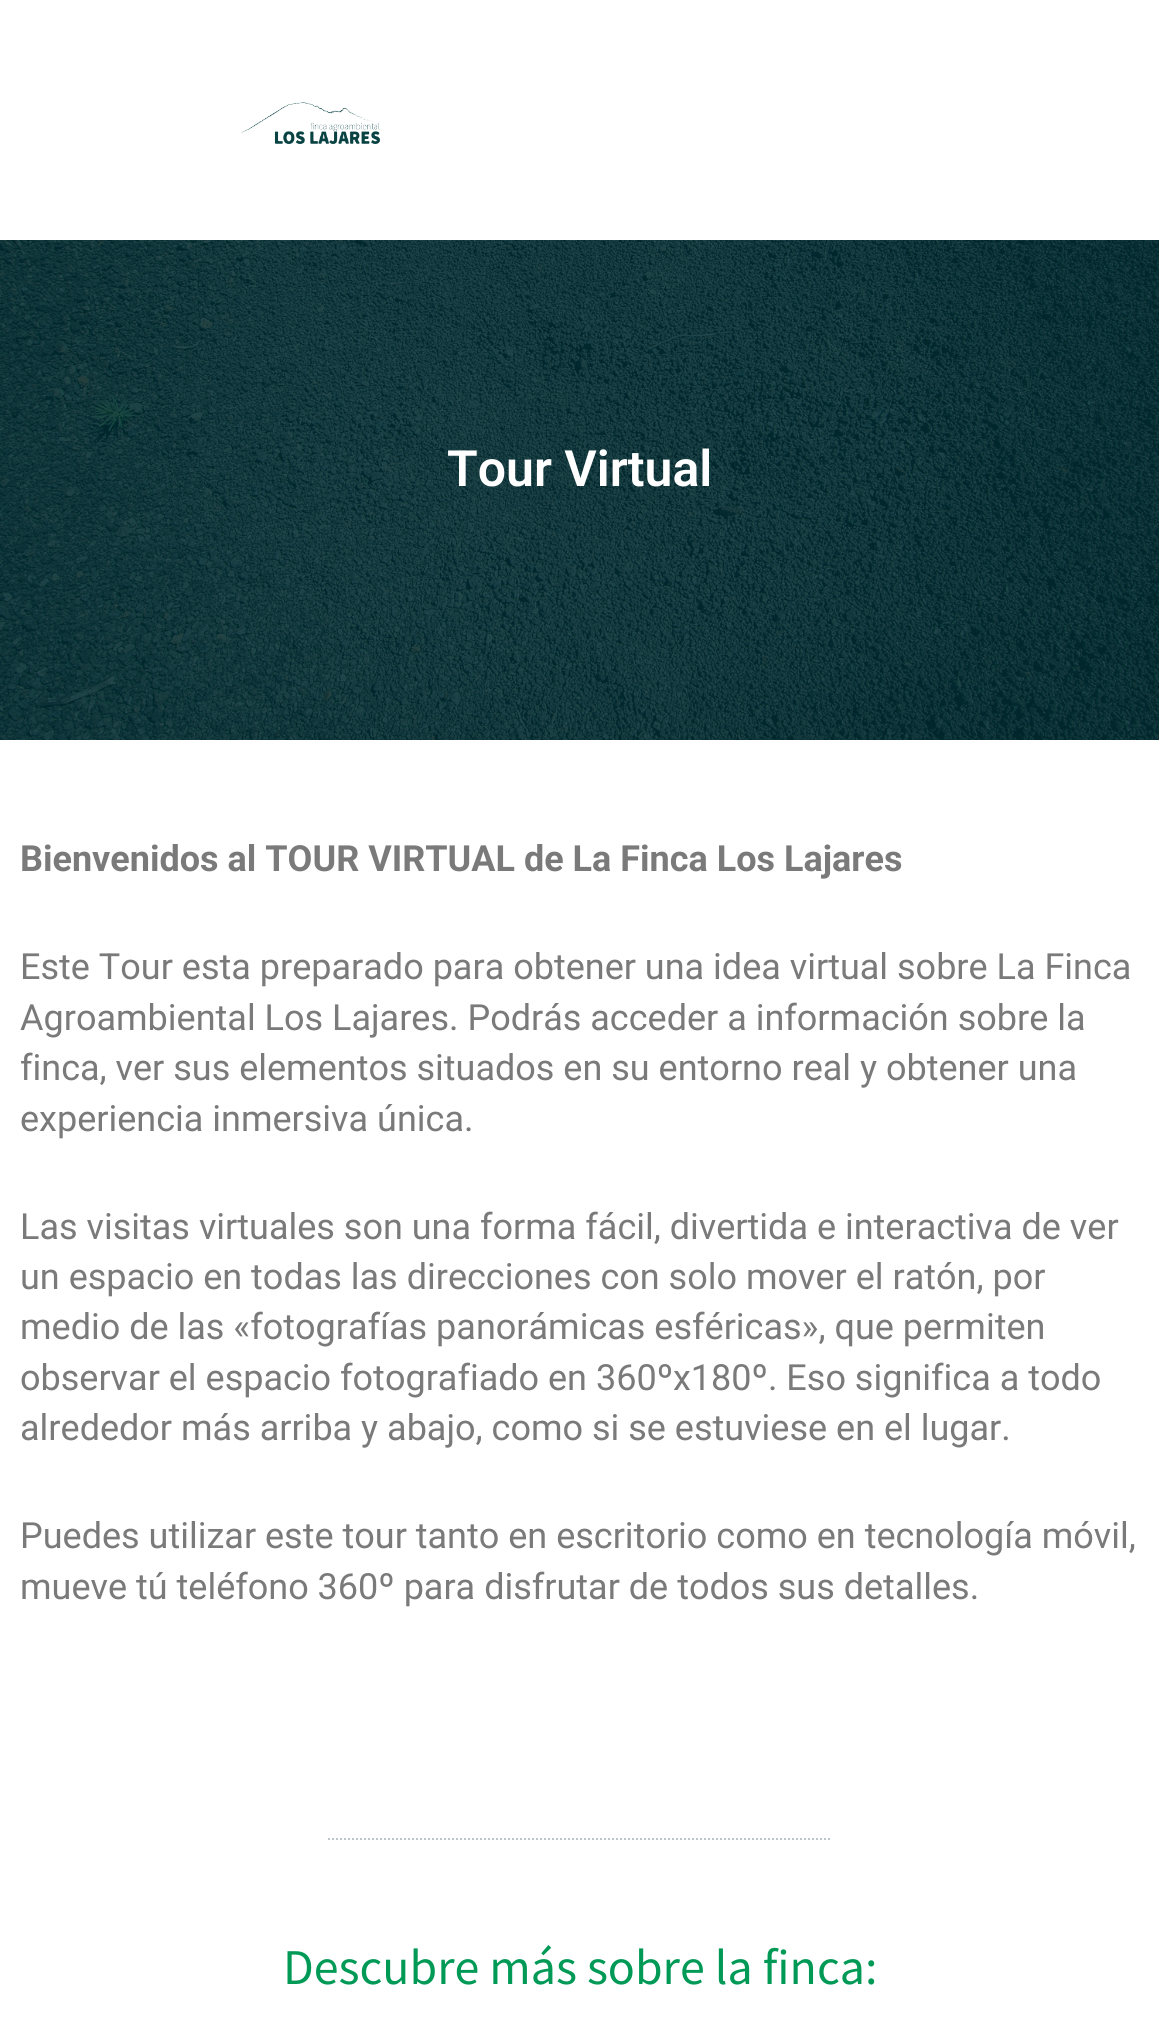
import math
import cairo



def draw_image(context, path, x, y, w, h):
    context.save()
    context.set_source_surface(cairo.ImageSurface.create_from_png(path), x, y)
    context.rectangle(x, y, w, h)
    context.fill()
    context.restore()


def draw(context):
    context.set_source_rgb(1, 1, 1)
    context.paint()
    draw_image(context, "images/1.png", 241, 102, 139, 42)
    draw_image(context, "images/2.png", 0, 240, 1159, 500)
    context.new_path()
    context.move_to(328, 1839)
    context.line_to(832, 1839)
    context.set_source_rgb(189 / 255, 198 / 255, 201 / 255)
    context.set_dash([2, 2])
    context.stroke()
    context.select_font_face("Roboto SemiBold")
    context.set_font_size(50)
    context.set_source_rgb(1, 1, 1)
    context.move_to(447, 486)
    context.show_text("Tour Virtual")
    context.select_font_face("Roboto", cairo.FontSlant.NORMAL, cairo.FontWeight.BOLD)
    context.set_font_size(36)
    context.set_source_rgb(122 / 255, 122 / 255, 122 / 255)
    context.move_to(20, 871)
    context.show_text("Bienvenidos al TOUR VIRTUAL de La Finca Los Lajares")
    context.select_font_face("Roboto")
    context.move_to(20, 979)
    context.show_text("Este Tour esta preparado para obtener una idea virtual sobre La Finca")
    context.move_to(20, 1030)
    context.show_text("Agroambiental Los Lajares. Podrás acceder a información sobre la")
    context.move_to(20, 1080)
    context.show_text("finca, ver sus elementos situados en su entorno real y obtener una")
    context.move_to(20, 1131)
    context.show_text("experiencia inmersiva única.")
    context.move_to(20, 1239)
    context.show_text("Las visitas virtuales son una forma fácil, divertida e interactiva de ver")
    context.move_to(20, 1289)
    context.show_text("un espacio en todas las direcciones con solo mover el ratón, por")
    context.move_to(20, 1339)
    context.show_text("medio de las «fotografías panorámicas esféricas», que permiten")
    context.move_to(20, 1390)
    context.show_text("observar el espacio fotografiado en 360ºx180º. Eso significa a todo")
    context.move_to(20, 1440)
    context.show_text("alrededor más arriba y abajo, como si se estuviese en el lugar.")
    context.move_to(20, 1548)
    context.show_text("Puedes utilizar este tour tanto en escritorio como en tecnología móvil,")
    context.move_to(20, 1599)
    context.show_text("mueve tú teléfono 360º para disfrutar de todos sus detalles.")
    context.select_font_face("Source Sans Pro")
    context.set_font_size(50)
    context.set_source_rgb(0, 153 / 255, 86 / 255)
    context.move_to(283, 1984)
    context.show_text("Descubre más sobre la finca:")


surface = cairo.ImageSurface(cairo.Format.RGB24, 1159, 2034)
context = cairo.Context(surface)
options = cairo.FontOptions()
options.set_hint_metrics(cairo.HintMetrics.OFF)
options.set_hint_style(cairo.HintStyle.NONE)
context.set_font_options(options)
context.set_miter_limit(4)
draw(context)
surface.write_to_png("out.png")
